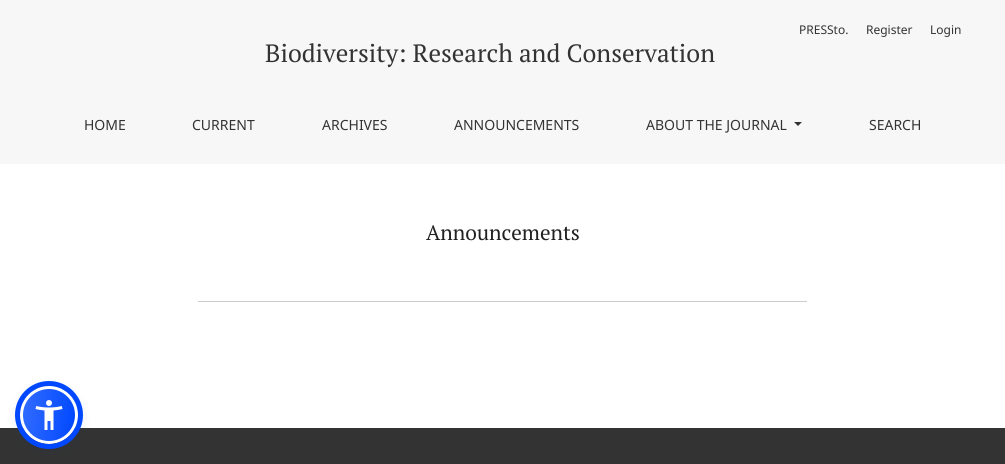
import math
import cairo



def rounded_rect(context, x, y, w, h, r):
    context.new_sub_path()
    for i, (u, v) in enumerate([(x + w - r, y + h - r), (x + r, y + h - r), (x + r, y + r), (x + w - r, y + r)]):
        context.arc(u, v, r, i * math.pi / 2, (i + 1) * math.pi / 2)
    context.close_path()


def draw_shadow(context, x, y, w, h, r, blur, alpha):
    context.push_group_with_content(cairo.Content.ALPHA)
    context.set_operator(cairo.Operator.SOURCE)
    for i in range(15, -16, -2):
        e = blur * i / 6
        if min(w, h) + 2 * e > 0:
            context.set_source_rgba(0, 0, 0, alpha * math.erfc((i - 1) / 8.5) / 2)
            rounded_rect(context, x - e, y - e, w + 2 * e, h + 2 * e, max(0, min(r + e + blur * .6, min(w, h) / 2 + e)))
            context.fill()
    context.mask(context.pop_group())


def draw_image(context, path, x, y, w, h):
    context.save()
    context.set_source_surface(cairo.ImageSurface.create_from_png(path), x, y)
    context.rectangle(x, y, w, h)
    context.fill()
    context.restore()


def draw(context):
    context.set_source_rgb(1, 1, 1)
    context.paint()
    context.set_source_rgb(247 / 255, 247 / 255, 247 / 255)
    context.rectangle(0, 0, 1005, 164)
    context.fill()
    context.set_source_rgb(51 / 255, 51 / 255, 51 / 255)
    context.new_path()
    context.move_to(794, 122)
    context.line_to(802, 122)
    context.line_to(798, 126)
    context.close_path()
    context.fill()
    context.set_source_rgb(204 / 255, 204 / 255, 204 / 255)
    context.rectangle(198, 301, 609, 1)
    context.fill()
    context.set_source_rgb(51 / 255, 51 / 255, 51 / 255)
    context.rectangle(0, 428, 1005, 36)
    context.fill()
    context.set_source_rgb(93 / 255, 100 / 255, 148 / 255)
    draw_shadow(context, 20, 388, 58, 58, 29, 2, 0.2)
    context.set_source_rgb(37 / 255, 44 / 255, 97 / 255)
    draw_shadow(context, 20, 391, 58, 58, 29, 7.5, 0.15)
    context.save()
    rounded_rect(context, 20, 386, 58, 58, 29)
    context.clip()
    gradient = cairo.LinearGradient(21, 412, 77, 418)
    gradient.add_color_stop_rgba(0, 50 / 255, 108 / 255, 1, 1)
    gradient.add_color_stop_rgba(1, 0, 72 / 255, 1, 1)
    context.set_source(gradient)
    context.rectangle(23, 389, 52, 52)
    context.fill()
    context.restore()
    context.arc(49, 415, 27.5, 0, 2 * math.pi)
    context.set_source_rgb(1, 1, 1)
    context.set_line_width(3)
    context.stroke()
    context.arc(49, 415, 31.5, 0, 2 * math.pi)
    context.set_source_rgb(0, 72 / 255, 1)
    context.set_line_width(5)
    context.stroke()
    draw_image(context, "images/1.png", 35, 400, 28, 30)
    context.select_font_face("Noto Sans")
    context.set_font_size(12)
    context.set_source_rgb(51 / 255, 51 / 255, 51 / 255)
    context.move_to(799, 34)
    context.show_text("PRESSto.")
    context.move_to(866, 34)
    context.show_text("Register")
    context.move_to(930, 34)
    context.show_text("Login")
    context.select_font_face("PT Serif")
    context.set_font_size(25)
    context.move_to(265, 62)
    context.show_text("Biodiversity: Research and Conservation")
    context.select_font_face("Noto Sans")
    context.set_font_size(14)
    context.move_to(84, 130)
    context.show_text("HOME")
    context.move_to(192, 130)
    context.show_text("CURRENT")
    context.move_to(322, 130)
    context.show_text("ARCHIVES")
    context.move_to(454, 130)
    context.show_text("ANNOUNCEMENTS")
    context.move_to(646, 130)
    context.show_text("ABOUT THE JOURNAL")
    context.move_to(869, 130)
    context.show_text("SEARCH")
    context.select_font_face("PT Serif")
    context.set_font_size(21)
    context.set_source_rgb(33 / 255, 33 / 255, 33 / 255)
    context.move_to(426, 240)
    context.show_text("Announcements")


surface = cairo.ImageSurface(cairo.Format.RGB24, 1005, 464)
context = cairo.Context(surface)
options = cairo.FontOptions()
options.set_hint_metrics(cairo.HintMetrics.OFF)
options.set_hint_style(cairo.HintStyle.NONE)
context.set_font_options(options)
context.set_miter_limit(4)
draw(context)
surface.write_to_png("out.png")
